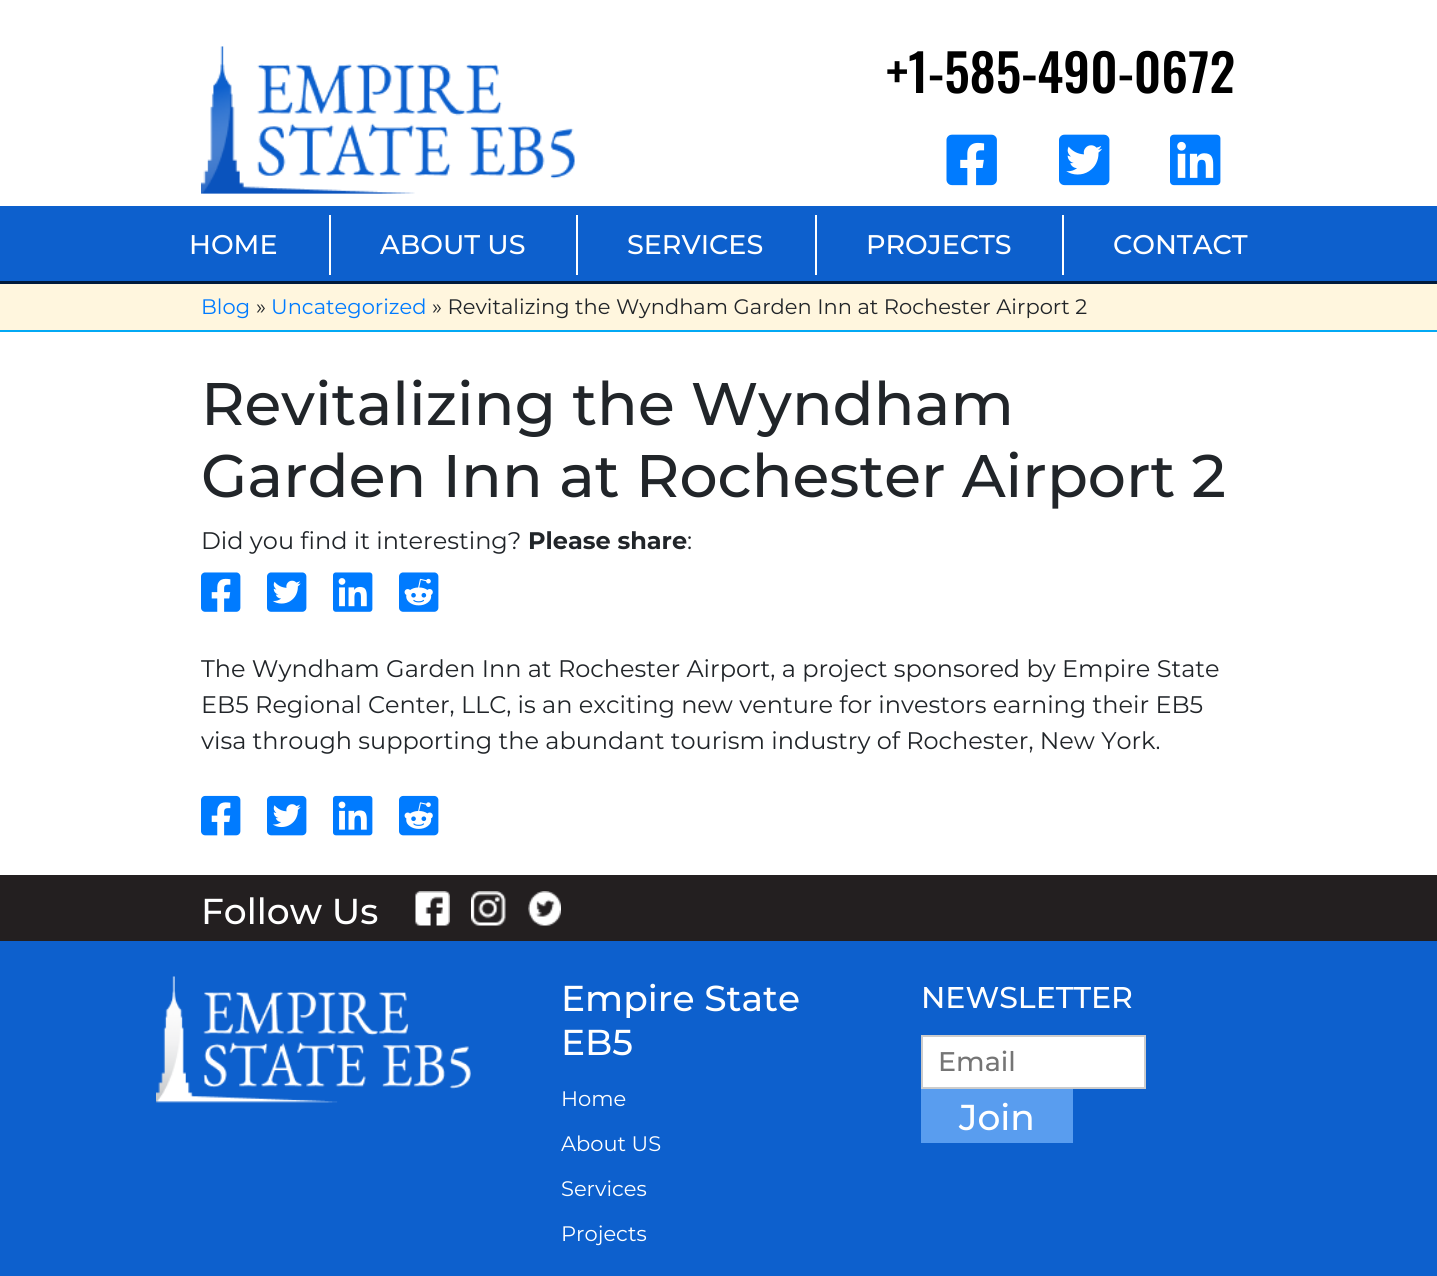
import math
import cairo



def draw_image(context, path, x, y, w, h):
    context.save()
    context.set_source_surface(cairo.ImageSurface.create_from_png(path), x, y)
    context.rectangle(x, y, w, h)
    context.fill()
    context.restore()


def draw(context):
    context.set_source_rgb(1, 1, 1)
    context.paint()
    draw_image(context, "images/1.png", 201, 46, 374, 148)
    draw_image(context, "images/2.png", 946, 134, 51, 52)
    draw_image(context, "images/3.png", 1059, 134, 51, 52)
    draw_image(context, "images/4.png", 1170, 134, 51, 52)
    context.set_source_rgb(13 / 255, 96 / 255, 205 / 255)
    context.rectangle(0, 206, 1437, 75)
    context.fill()
    context.set_source_rgb(0, 26 / 255, 59 / 255)
    context.rectangle(0, 281, 1437, 3)
    context.fill()
    context.set_source_rgb(1, 1, 1)
    context.rectangle(329, 215, 2, 60)
    context.fill()
    context.rectangle(576, 215, 2, 60)
    context.fill()
    context.rectangle(815, 215, 2, 60)
    context.fill()
    context.rectangle(1062, 215, 2, 60)
    context.fill()
    context.set_source_rgb(1, 246 / 255, 222 / 255)
    context.rectangle(0, 284, 1437, 46)
    context.fill()
    context.set_source_rgb(3 / 255, 169 / 255, 244 / 255)
    context.rectangle(0, 330, 1437, 2)
    context.fill()
    draw_image(context, "images/5.png", 201, 572, 40, 40)
    draw_image(context, "images/6.png", 267, 572, 40, 40)
    draw_image(context, "images/7.png", 333, 572, 40, 40)
    draw_image(context, "images/8.png", 399, 572, 40, 40)
    draw_image(context, "images/9.png", 201, 795, 40, 41)
    draw_image(context, "images/10.png", 267, 795, 40, 41)
    draw_image(context, "images/11.png", 333, 795, 40, 41)
    draw_image(context, "images/12.png", 399, 795, 40, 41)
    context.set_source_rgb(35 / 255, 31 / 255, 32 / 255)
    context.rectangle(0, 875, 1437, 66)
    context.fill()
    draw_image(context, "images/13.png", 415, 891, 35, 35)
    draw_image(context, "images/14.png", 471, 891, 35, 35)
    draw_image(context, "images/15.png", 528, 891, 33, 35)
    context.set_source_rgb(13 / 255, 96 / 255, 205 / 255)
    context.rectangle(0, 941, 1437, 335)
    context.fill()
    draw_image(context, "images/16.png", 156, 976, 315, 127)
    context.set_source_rgb(1, 1, 1)
    context.rectangle(922, 1036, 223, 52)
    context.fill_preserve()
    context.set_source_rgb(204 / 255, 204 / 255, 204 / 255)
    context.stroke()
    context.set_source_rgb(89 / 255, 157 / 255, 239 / 255)
    context.rectangle(921, 1089, 152, 54)
    context.fill()
    context.select_font_face("Oswald Medium")
    context.set_font_size(51.5)
    context.set_source_rgb(0, 0, 0)
    context.move_to(886, 93)
    context.show_text("+1-585-490-0672")
    context.select_font_face("Montserrat Medium")
    context.set_font_size(27)
    context.set_source_rgb(1, 1, 1)
    context.move_to(189, 254)
    context.show_text("HOME")
    context.move_to(380, 254)
    context.show_text("ABOUT US")
    context.move_to(627, 254)
    context.show_text("SERVICES")
    context.move_to(866, 254)
    context.show_text("PROJECTS")
    context.move_to(1113, 254)
    context.show_text("CONTACT")
    context.select_font_face("Montserrat")
    context.set_font_size(21)
    context.set_source_rgb(0, 123 / 255, 1)
    context.move_to(201, 314)
    context.show_text("Blog")
    context.set_source_rgb(33 / 255, 37 / 255, 41 / 255)
    context.move_to(256, 314)
    context.show_text("»")
    context.set_source_rgb(0, 123 / 255, 1)
    context.move_to(271, 314)
    context.show_text("Uncategorized")
    context.set_source_rgb(33 / 255, 37 / 255, 41 / 255)
    context.move_to(432, 314)
    context.show_text("» Revitalizing the Wyndham Garden Inn at Rochester Airport 2")
    context.select_font_face("Montserrat Medium")
    context.set_font_size(60)
    context.move_to(201, 425)
    context.show_text("Revitalizing the Wyndham")
    context.move_to(201, 497)
    context.show_text("Garden Inn at Rochester Airport 2")
    context.select_font_face("Montserrat")
    context.set_font_size(24)
    context.move_to(201, 549)
    context.show_text("Did you find it interesting?")
    context.select_font_face("Montserrat", cairo.FontSlant.NORMAL, cairo.FontWeight.BOLD)
    context.move_to(528, 549)
    context.show_text("Please share")
    context.select_font_face("Montserrat")
    context.move_to(687, 549)
    context.show_text(":")
    context.move_to(201, 677)
    context.show_text("The Wyndham Garden Inn at Rochester Airport, a project sponsored by Empire State")
    context.move_to(201, 713)
    context.show_text("EB5 Regional Center, LLC, is an exciting new venture for investors earning their EB5")
    context.move_to(201, 749)
    context.show_text("visa through supporting the abundant tourism industry of Rochester, New York.")
    context.select_font_face("Montserrat Medium")
    context.set_font_size(36)
    context.set_source_rgb(1, 1, 1)
    context.move_to(201, 924)
    context.show_text("Follow Us")
    context.move_to(561, 1011)
    context.show_text("Empire State")
    context.move_to(561, 1055)
    context.show_text("EB5")
    context.select_font_face("Montserrat")
    context.set_font_size(21)
    context.move_to(561, 1106)
    context.show_text("Home")
    context.move_to(561, 1151)
    context.show_text("About US")
    context.move_to(561, 1196)
    context.show_text("Services")
    context.move_to(561, 1241)
    context.show_text("Projects")
    context.select_font_face("Montserrat Medium")
    context.set_font_size(30)
    context.move_to(921, 1008)
    context.show_text("NEWSLETTER")
    context.set_font_size(27)
    context.set_source_rgb(117 / 255, 117 / 255, 117 / 255)
    context.move_to(938, 1071)
    context.show_text("Email")
    context.set_font_size(36)
    context.set_source_rgb(1, 1, 1)
    context.move_to(959, 1130)
    context.show_text("Join")


surface = cairo.ImageSurface(cairo.Format.RGB24, 1437, 1276)
context = cairo.Context(surface)
options = cairo.FontOptions()
options.set_hint_metrics(cairo.HintMetrics.OFF)
options.set_hint_style(cairo.HintStyle.NONE)
context.set_font_options(options)
context.set_miter_limit(4)
draw(context)
surface.write_to_png("out.png")
